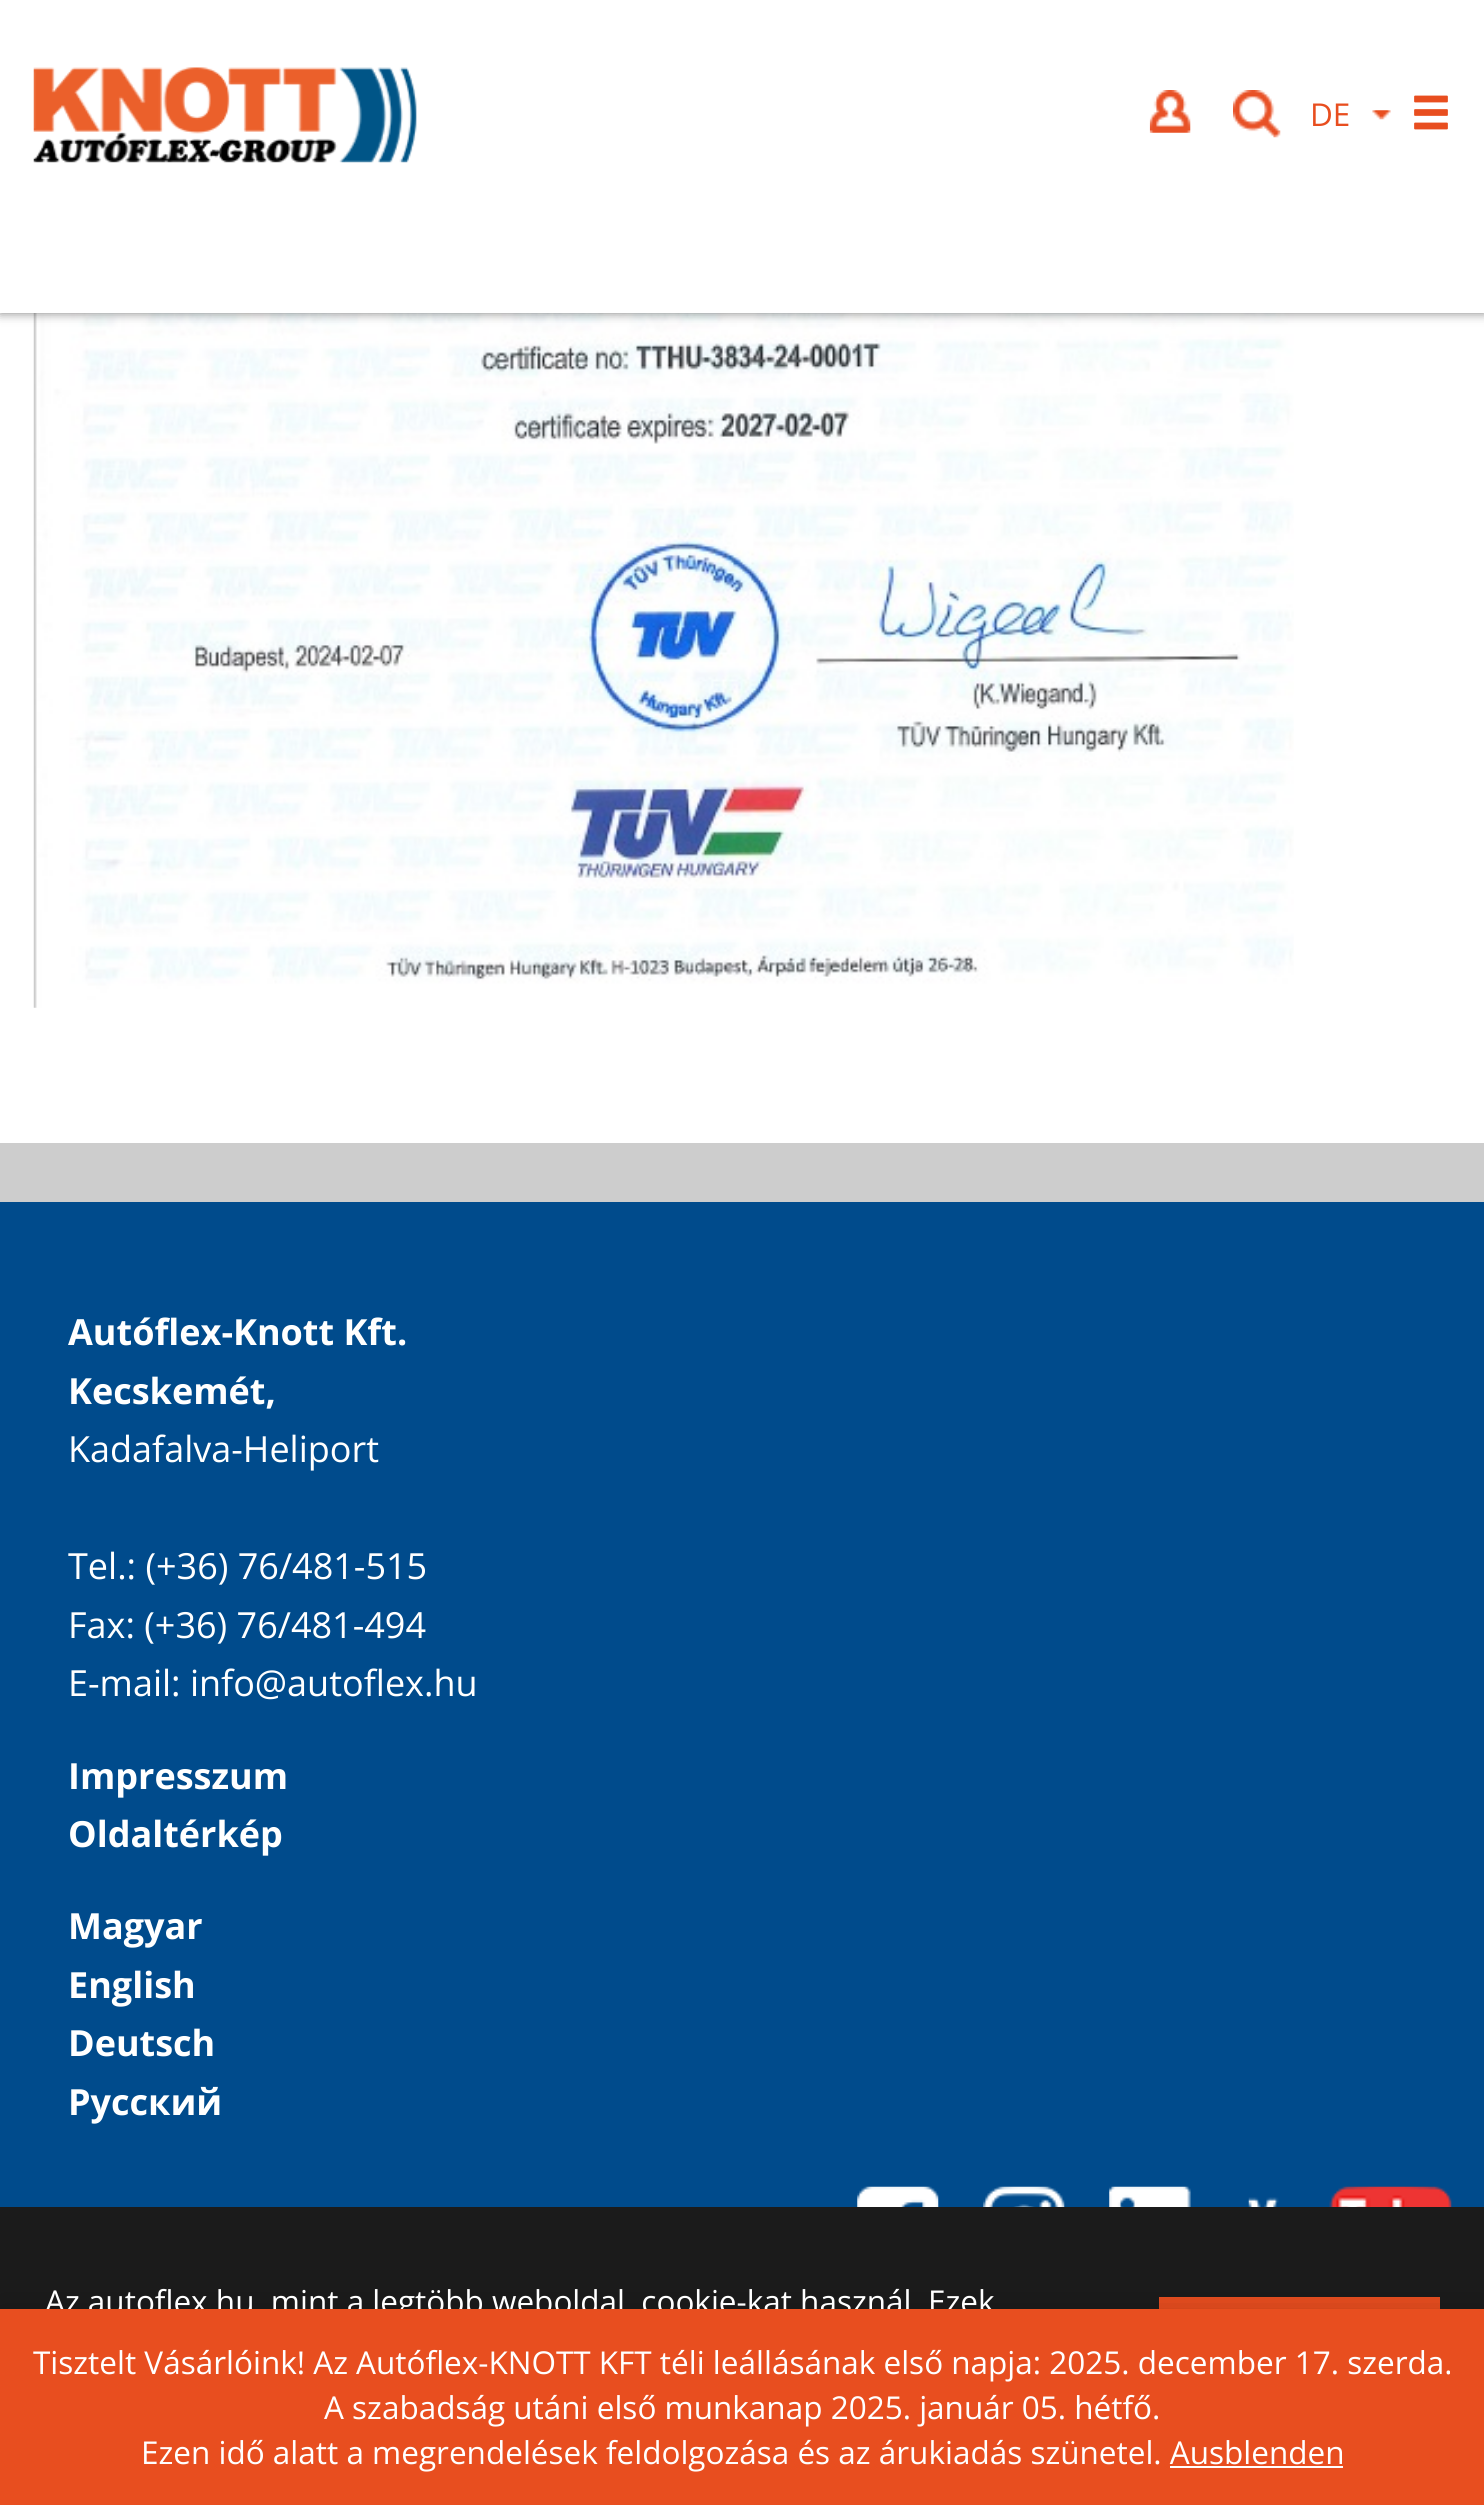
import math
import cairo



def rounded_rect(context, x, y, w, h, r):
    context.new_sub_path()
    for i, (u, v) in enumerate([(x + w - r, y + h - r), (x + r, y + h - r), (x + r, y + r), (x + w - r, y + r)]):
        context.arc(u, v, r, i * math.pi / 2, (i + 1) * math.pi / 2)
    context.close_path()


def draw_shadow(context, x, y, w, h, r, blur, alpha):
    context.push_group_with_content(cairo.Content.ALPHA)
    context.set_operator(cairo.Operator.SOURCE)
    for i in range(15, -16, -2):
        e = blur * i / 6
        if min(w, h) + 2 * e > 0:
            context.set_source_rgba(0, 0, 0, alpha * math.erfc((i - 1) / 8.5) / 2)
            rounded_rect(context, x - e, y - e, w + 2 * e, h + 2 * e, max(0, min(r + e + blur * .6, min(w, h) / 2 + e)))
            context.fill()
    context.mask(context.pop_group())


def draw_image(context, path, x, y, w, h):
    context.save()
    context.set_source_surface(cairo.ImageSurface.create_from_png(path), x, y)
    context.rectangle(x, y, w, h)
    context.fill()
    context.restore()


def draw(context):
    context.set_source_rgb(1, 1, 1)
    context.paint()
    draw_image(context, "images/6.png", 33, 313, 1261, 695)
    context.set_source_rgb(0, 0, 0)
    draw_shadow(context, 0, 0, 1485, 313, 0, 5.5, 0.5)
    context.set_source_rgb(1, 1, 1)
    context.rectangle(0, 0, 1484, 313)
    context.fill()
    draw_image(context, "images/1.png", 33, 67, 384, 96)
    draw_image(context, "images/2.png", 1149, 90, 42, 43)
    draw_image(context, "images/3.png", 1233, 90, 48, 48)
    draw_image(context, "images/4.png", 1372, 110, 19, 10)
    draw_image(context, "images/5.png", 1414, 95, 34, 35)
    context.set_source_rgb(0, 75 / 255, 140 / 255)
    context.rectangle(0, 1202, 1484, 1005)
    context.fill()
    context.set_source_rgb(205 / 255, 205 / 255, 205 / 255)
    context.rectangle(0, 1143, 1484, 59)
    context.fill()
    draw_image(context, "images/7.png", 857, 2186, 82, 21)
    draw_image(context, "images/8.png", 983, 2186, 82, 21)
    draw_image(context, "images/9.png", 1109, 2186, 82, 21)
    draw_image(context, "images/10.png", 1248, 2186, 204, 21)
    context.set_source_rgb(27 / 255, 27 / 255, 27 / 255)
    context.rectangle(0, 2207, 1484, 102)
    context.fill()
    context.set_source_rgb(232 / 255, 78 / 255, 31 / 255)
    context.rectangle(1159, 2297, 281, 12)
    context.fill()
    context.set_source_rgb(0, 0, 0)
    draw_shadow(context, 0, 2311, 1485, 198, 0, 16, 0.2)
    context.select_font_face("Open Sans")
    context.set_font_size(31.5)
    context.set_source_rgb(232 / 255, 78 / 255, 31 / 255)
    context.move_to(1310, 126)
    context.show_text("DE")
    context.select_font_face("Open Sans", cairo.FontSlant.NORMAL, cairo.FontWeight.BOLD)
    context.set_font_size(36)
    context.set_source_rgb(1, 1, 1)
    context.move_to(68, 1345)
    context.show_text("Autóflex-Knott Kft.")
    context.move_to(68, 1404)
    context.show_text("Kecskemét,")
    context.select_font_face("Open Sans")
    context.move_to(68, 1462)
    context.show_text("Kadafalva-Heliport")
    context.move_to(68, 1579)
    context.show_text("Tel.: (+36) 76/481-515")
    context.move_to(68, 1638)
    context.show_text("Fax: (+36) 76/481-494")
    context.move_to(68, 1696)
    context.show_text("E-mail: info@autoflex.hu")
    context.select_font_face("Open Sans", cairo.FontSlant.NORMAL, cairo.FontWeight.BOLD)
    context.move_to(68, 1789)
    context.show_text("Impresszum")
    context.move_to(68, 1847)
    context.show_text("Oldaltérkép")
    context.move_to(68, 1939)
    context.show_text("Magyar")
    context.move_to(68, 1998)
    context.show_text("English")
    context.move_to(68, 2056)
    context.show_text("Deutsch")
    context.move_to(68, 2115)
    context.show_text("Русский")
    context.select_font_face("Open Sans")
    context.set_font_size(31.5)
    context.move_to(45, 2313)
    context.show_text("Az autoflex.hu, mint a legtöbb weboldal, cookie-kat használ. Ezek")
    context.set_source_rgb(232 / 255, 78 / 255, 31 / 255)
    context.rectangle(0, 2309, 1484, 196)
    context.fill()
    context.set_source_rgb(1, 1, 1)
    context.move_to(33, 2374)
    context.show_text("Tisztelt Vásárlóink! Az Autóflex-KNOTT KFT téli leállásának első napja: 2025. december 17. szerda.")
    context.move_to(324, 2419)
    context.show_text("A szabadság utáni első munkanap 2025. január 05. hétfő.")
    context.move_to(141, 2464)
    context.show_text("Ezen idő alatt a megrendelések feldolgozása és az árukiadás szünetel. Ausblenden")
    context.rectangle(1170, 2466, 173, 2)
    context.fill()


surface = cairo.ImageSurface(cairo.Format.RGB24, 1484, 2505)
context = cairo.Context(surface)
options = cairo.FontOptions()
options.set_hint_metrics(cairo.HintMetrics.OFF)
options.set_hint_style(cairo.HintStyle.NONE)
context.set_font_options(options)
context.set_miter_limit(4)
draw(context)
surface.write_to_png("out.png")
